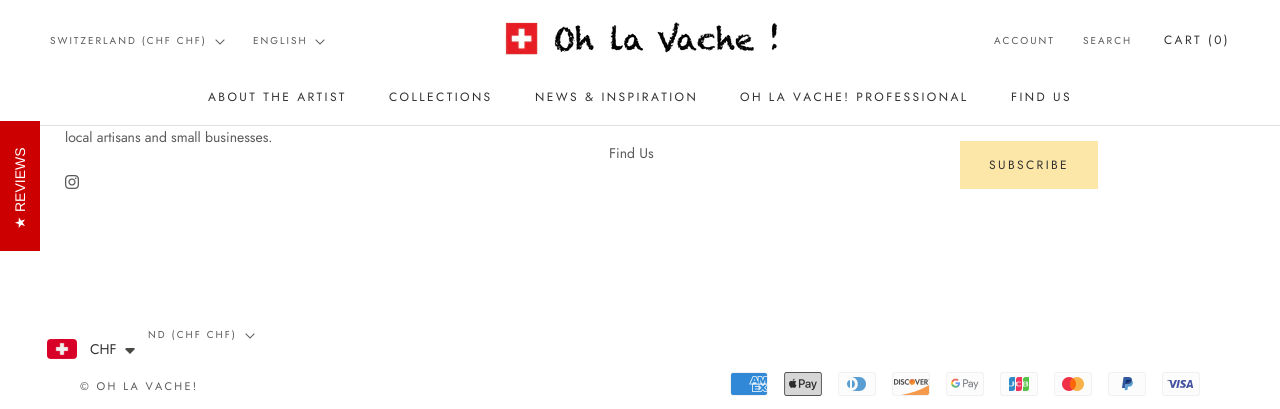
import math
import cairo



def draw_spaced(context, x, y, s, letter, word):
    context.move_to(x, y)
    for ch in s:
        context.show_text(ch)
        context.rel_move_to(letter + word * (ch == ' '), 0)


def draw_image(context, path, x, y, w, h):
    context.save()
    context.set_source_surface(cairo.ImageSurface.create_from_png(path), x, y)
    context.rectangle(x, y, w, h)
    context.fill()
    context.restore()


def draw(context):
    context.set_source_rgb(1, 1, 1)
    context.paint()
    context.set_source_rgb(204 / 255, 0, 0)
    context.rectangle(0, 121, 40, 130)
    context.fill()
    context.set_source_rgb(224 / 255, 224 / 255, 224 / 255)
    context.rectangle(40, 125, 1240, 1)
    context.fill()
    draw_image(context, "images/1.png", 505, 22, 272, 33)
    context.new_path()
    context.move_to(224, 40)
    context.line_to(220, 44)
    context.line_to(216, 40)
    context.set_source_rgb(89 / 255, 89 / 255, 89 / 255)
    context.set_line_width(1)
    context.set_line_cap(cairo.LineCap.SQUARE)
    context.stroke()
    context.new_path()
    context.move_to(324, 40)
    context.line_to(320, 44)
    context.line_to(316, 40)
    context.stroke()
    draw_image(context, "images/2.png", 65, 175, 14, 14)
    context.rectangle(960.5, 141.5, 137, 47)
    context.set_source_rgb(252 / 255, 231 / 255, 168 / 255)
    context.set_line_cap(cairo.LineCap.BUTT)
    context.stroke()
    context.rectangle(961, 142, 136, 46)
    context.fill()
    context.new_path()
    context.move_to(254, 334)
    context.line_to(250, 338)
    context.line_to(246, 334)
    context.set_source_rgb(89 / 255, 89 / 255, 89 / 255)
    context.set_line_cap(cairo.LineCap.SQUARE)
    context.stroke()
    draw_image(context, "images/3.png", 730, 372, 38, 24)
    draw_image(context, "images/4.png", 784, 372, 38, 24)
    draw_image(context, "images/5.png", 838, 372, 38, 24)
    draw_image(context, "images/6.png", 892, 372, 38, 24)
    draw_image(context, "images/7.png", 946, 372, 38, 24)
    draw_image(context, "images/8.png", 1000, 372, 38, 24)
    draw_image(context, "images/9.png", 1054, 372, 38, 24)
    draw_image(context, "images/10.png", 1108, 372, 38, 24)
    draw_image(context, "images/11.png", 1162, 372, 38, 24)
    draw_image(context, "images/12.png", 47, 339, 30, 20)
    context.set_source_rgb(71 / 255, 73 / 255, 66 / 255)
    context.new_path()
    context.move_to(127, 348)
    context.curve_to(126, 348, 125.5, 348.5, 125, 349)
    context.line_to(130, 354)
    context.line_to(135, 349)
    context.line_to(134, 348)
    context.close_path()
    context.fill()
    context.select_font_face("Liberation Sans")
    context.set_font_size(14)
    context.set_source_rgb(1, 1, 1)
    context.save()
    context.translate(25, 212)
    context.rotate(-90 * math.pi / 180)
    context.move_to(0, 0)
    context.show_text("REVIEWS")
    context.restore()
    context.select_font_face("DejaVu Sans")
    context.save()
    context.translate(25, 229)
    context.rotate(-90 * math.pi / 180)
    context.move_to(0, 0)
    context.show_text("★")
    context.restore()
    context.select_font_face("Jost")
    context.set_font_size(10)
    context.set_source_rgb(89 / 255, 89 / 255, 89 / 255)
    draw_spaced(context, 994, 44, "ACCOUNT", 2, 0)
    draw_spaced(context, 1083, 44, "SEARCH", 2, 0)
    context.set_font_size(12)
    context.set_source_rgb(48 / 255, 48 / 255, 48 / 255)
    draw_spaced(context, 1164, 44, "CART (0)", 2.4, 0)
    context.set_font_size(10)
    context.set_source_rgb(89 / 255, 89 / 255, 89 / 255)
    draw_spaced(context, 50, 44, "SWITZERLAND (CHF CHF)", 2, 0)
    draw_spaced(context, 253, 44, "ENGLISH", 2, 0)
    context.set_font_size(12)
    context.set_source_rgb(48 / 255, 48 / 255, 48 / 255)
    draw_spaced(context, 208, 101, "ABOUT THE ARTIST", 2.4, 0)
    draw_spaced(context, 389, 101, "COLLECTIONS", 2.4, 0)
    draw_spaced(context, 535, 101, "NEWS & INSPIRATION", 2.4, 0)
    draw_spaced(context, 740, 101, "OH LA VACHE! PROFESSIONAL", 2.4, 0)
    draw_spaced(context, 1011, 101, "FIND US", 2.4, 0)
    context.set_font_size(14)
    context.set_source_rgb(89 / 255, 89 / 255, 89 / 255)
    context.move_to(65, 142)
    context.show_text("local artisans and small businesses.")
    context.move_to(609, 158)
    context.show_text("Find Us")
    context.set_font_size(12)
    context.set_source_rgb(48 / 255, 48 / 255, 48 / 255)
    draw_spaced(context, 989, 169, "SUBSCRIBE", 2.4, 0)
    context.set_font_size(10)
    context.set_source_rgb(89 / 255, 89 / 255, 89 / 255)
    draw_spaced(context, 148, 338, "ND (CHF CHF)", 2, 0)
    context.set_font_size(11)
    draw_spaced(context, 80, 390, "© OH LA VACHE!", 2.25, 0)
    context.set_font_size(14)
    context.set_source_rgb(48 / 255, 48 / 255, 48 / 255)
    context.move_to(90, 354)
    context.show_text("CHF")


surface = cairo.ImageSurface(cairo.Format.RGB24, 1280, 409)
context = cairo.Context(surface)
options = cairo.FontOptions()
options.set_hint_metrics(cairo.HintMetrics.OFF)
options.set_hint_style(cairo.HintStyle.NONE)
context.set_font_options(options)
context.set_miter_limit(4)
draw(context)
surface.write_to_png("out.png")
